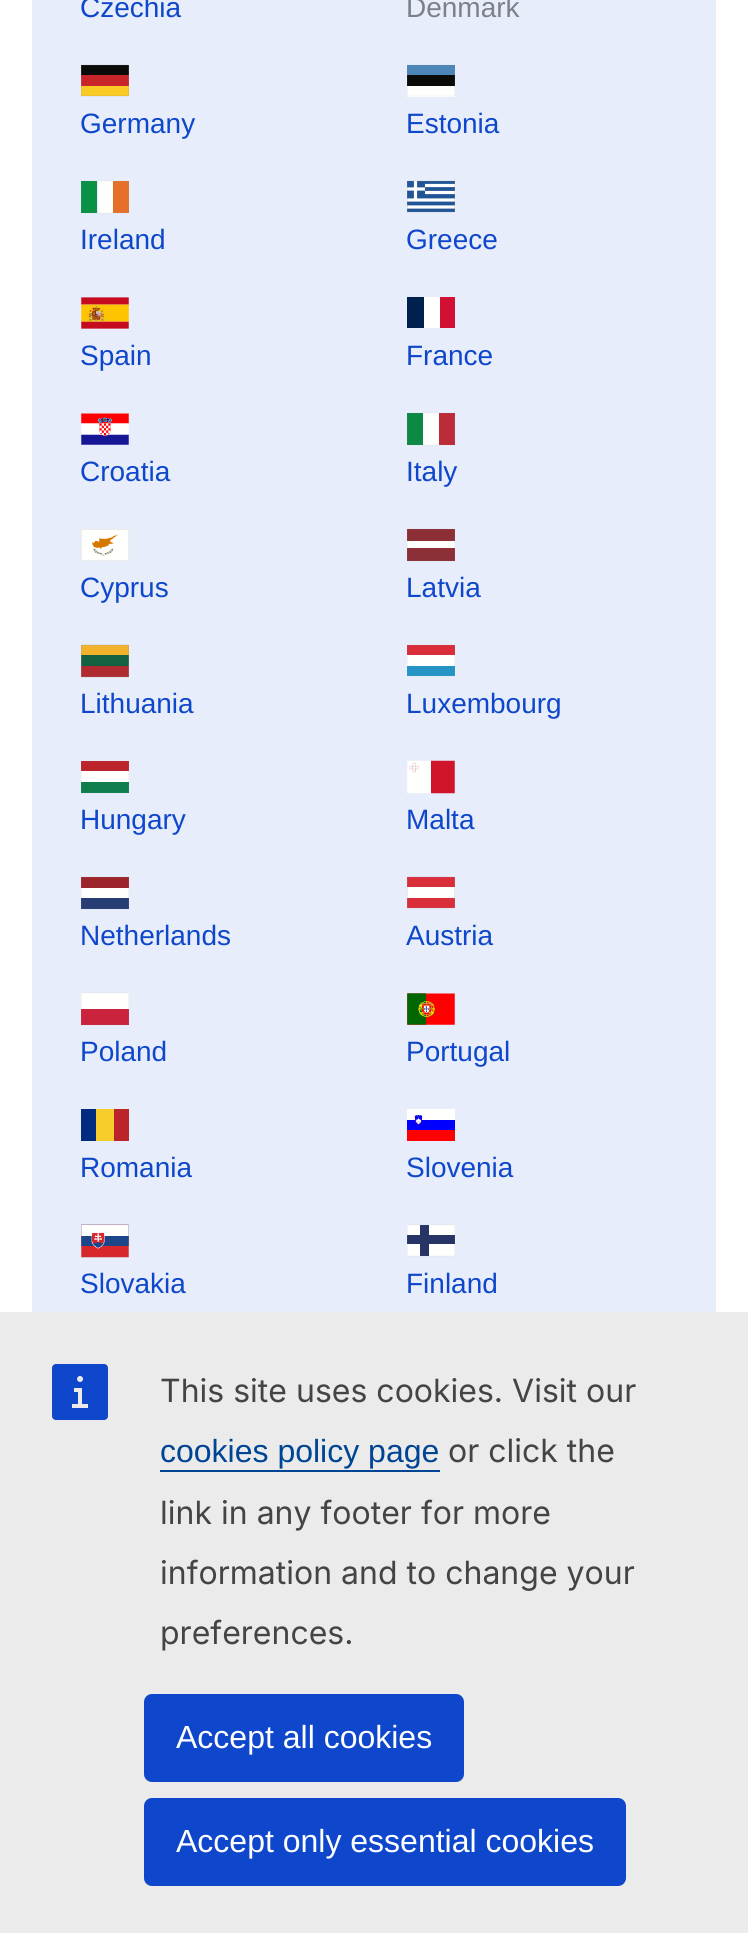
import math
import cairo



def rounded_rect(context, x, y, w, h, r):
    context.new_sub_path()
    for i, (u, v) in enumerate([(x + w - r, y + h - r), (x + r, y + h - r), (x + r, y + r), (x + w - r, y + r)]):
        context.arc(u, v, r, i * math.pi / 2, (i + 1) * math.pi / 2)
    context.close_path()


def draw_image(context, path, x, y, w, h):
    context.save()
    context.set_source_surface(cairo.ImageSurface.create_from_png(path), x, y)
    context.rectangle(x, y, w, h)
    context.fill()
    context.restore()


def draw(context):
    context.set_source_rgb(1, 1, 1)
    context.paint()
    context.set_source_rgb(231 / 255, 237 / 255, 250 / 255)
    context.rectangle(32, 0, 684, 1312)
    context.fill()
    context.set_source_rgb(10 / 255, 11 / 255, 9 / 255)
    context.rectangle(81, 65, 48, 10)
    context.fill()
    context.set_source_rgb(201 / 255, 36 / 255, 42 / 255)
    context.rectangle(81, 75, 48, 11)
    context.fill()
    context.set_source_rgb(248 / 255, 202 / 255, 35 / 255)
    context.rectangle(81, 86, 48, 10)
    context.fill()
    context.new_path()
    context.move_to(128.5, 65)
    context.line_to(128.5, 96)
    context.line_to(81.5, 96)
    context.line_to(81.5, 65)
    context.close_path()
    context.set_source_rgb(151 / 255, 151 / 255, 151 / 255)
    context.set_line_width(0.2)
    context.stroke()
    context.set_source_rgb(78 / 255, 133 / 255, 185 / 255)
    context.rectangle(407, 65, 48, 10)
    context.fill()
    context.set_source_rgb(10 / 255, 11 / 255, 9 / 255)
    context.rectangle(407, 75, 48, 11)
    context.fill()
    context.set_source_rgb(1, 1, 254 / 255)
    context.rectangle(407, 86, 48, 11)
    context.fill()
    context.new_path()
    context.move_to(454.5, 65)
    context.line_to(454.5, 96)
    context.line_to(407.5, 96)
    context.line_to(407.5, 65)
    context.close_path()
    context.set_source_rgb(151 / 255, 151 / 255, 151 / 255)
    context.set_line_width(0.1)
    context.stroke()
    context.set_source_rgb(10 / 255, 145 / 255, 70 / 255)
    context.rectangle(81, 181, 16, 32)
    context.fill()
    context.set_source_rgb(1, 1, 254 / 255)
    context.rectangle(98, 181, 15, 32)
    context.fill()
    context.set_source_rgb(229 / 255, 112 / 255, 42 / 255)
    context.rectangle(113, 181, 16, 32)
    context.fill()
    context.new_path()
    context.move_to(128.5, 181)
    context.line_to(128.5, 213)
    context.line_to(81.5, 213)
    context.line_to(81.5, 181)
    context.close_path()
    context.set_source_rgb(151 / 255, 151 / 255, 151 / 255)
    context.stroke()
    context.set_source_rgb(33 / 255, 85 / 255, 150 / 255)
    context.rectangle(407, 181, 48, 31)
    context.fill()
    context.new_path()
    context.move_to(407, 207)
    context.line_to(455, 207)
    context.move_to(407, 200)
    context.line_to(455, 200)
    context.move_to(425, 192.5)
    context.line_to(455, 192.5)
    context.move_to(425, 185.5)
    context.line_to(455, 185.5)
    context.move_to(407, 189)
    context.line_to(425, 189)
    context.move_to(415.5, 181)
    context.line_to(415.5, 200)
    context.set_source_rgb(1, 1, 254 / 255)
    context.set_line_width(3.2)
    context.stroke()
    context.new_path()
    context.move_to(454.5, 181)
    context.line_to(454.5, 212)
    context.line_to(407.5, 212)
    context.line_to(407.5, 181)
    context.close_path()
    context.set_source_rgb(151 / 255, 151 / 255, 151 / 255)
    context.set_line_width(0.2)
    context.stroke()
    draw_image(context, "images/1.png", 81, 297, 48, 32)
    context.set_source_rgb(210 / 255, 16 / 255, 52 / 255)
    context.rectangle(440, 297, 15, 31)
    context.fill()
    context.set_source_rgb(1, 1, 254 / 255)
    context.rectangle(424, 297, 16, 31)
    context.fill()
    context.set_source_rgb(0, 32 / 255, 78 / 255)
    context.rectangle(407, 297, 17, 31)
    context.fill()
    draw_image(context, "images/2.png", 81, 413, 48, 32)
    context.set_source_rgb(12 / 255, 137 / 255, 68 / 255)
    context.rectangle(407, 413, 16, 32)
    context.fill()
    context.set_source_rgb(1, 1, 254 / 255)
    context.rectangle(423, 413, 16, 32)
    context.fill()
    context.set_source_rgb(188 / 255, 44 / 255, 56 / 255)
    context.rectangle(439, 413, 16, 32)
    context.fill()
    context.new_path()
    context.move_to(454.5, 413)
    context.line_to(454.5, 445)
    context.line_to(407.5, 445)
    context.line_to(407.5, 413)
    context.close_path()
    context.set_source_rgb(151 / 255, 151 / 255, 151 / 255)
    context.set_line_width(0.1)
    context.stroke()
    draw_image(context, "images/3.png", 81, 529, 48, 32)
    context.set_source_rgb(140 / 255, 47 / 255, 55 / 255)
    context.rectangle(407, 529, 48, 32)
    context.fill()
    context.set_source_rgb(1, 1, 254 / 255)
    context.rectangle(407, 541, 48, 7)
    context.fill()
    context.new_path()
    context.move_to(454.5, 529)
    context.line_to(454.5, 561)
    context.line_to(407.5, 561)
    context.line_to(407.5, 529)
    context.close_path()
    context.set_source_rgb(151 / 255, 151 / 255, 151 / 255)
    context.stroke()
    context.set_source_rgb(242 / 255, 178 / 255, 43 / 255)
    context.rectangle(81, 645, 48, 10)
    context.fill()
    context.set_source_rgb(175 / 255, 43 / 255, 48 / 255)
    context.rectangle(81, 666, 48, 11)
    context.fill()
    context.set_source_rgb(19 / 255, 97 / 255, 64 / 255)
    context.rectangle(81, 655, 48, 11)
    context.fill()
    context.new_path()
    context.move_to(128.5, 645)
    context.line_to(128.5, 677)
    context.line_to(81.5, 677)
    context.line_to(81.5, 645)
    context.close_path()
    context.set_source_rgb(151 / 255, 151 / 255, 151 / 255)
    context.stroke()
    context.new_path()
    context.move_to(128.5, 645)
    context.line_to(128.5, 677)
    context.line_to(81.5, 677)
    context.line_to(81.5, 645)
    context.close_path()
    context.set_line_width(0.2)
    context.stroke()
    context.set_source_rgb(38 / 255, 149 / 255, 198 / 255)
    context.rectangle(407, 666, 48, 10)
    context.fill()
    context.set_source_rgb(217 / 255, 45 / 255, 58 / 255)
    context.rectangle(407, 645, 48, 10)
    context.fill()
    context.set_source_rgb(1, 1, 254 / 255)
    context.rectangle(407, 655, 48, 11)
    context.fill()
    context.new_path()
    context.move_to(454.5, 645)
    context.line_to(454.5, 676)
    context.line_to(407.5, 676)
    context.line_to(407.5, 645)
    context.close_path()
    context.set_source_rgb(151 / 255, 151 / 255, 151 / 255)
    context.set_line_width(0.1)
    context.stroke()
    context.set_source_rgb(188 / 255, 36 / 255, 44 / 255)
    context.rectangle(81, 761, 48, 10)
    context.fill()
    context.set_source_rgb(1, 1, 254 / 255)
    context.rectangle(81, 771, 48, 11)
    context.fill()
    context.set_source_rgb(17 / 255, 126 / 255, 78 / 255)
    context.rectangle(81, 782, 48, 11)
    context.fill()
    context.new_path()
    context.move_to(128.5, 761)
    context.line_to(128.5, 793)
    context.line_to(81.5, 793)
    context.line_to(81.5, 761)
    context.close_path()
    context.set_source_rgb(151 / 255, 151 / 255, 151 / 255)
    context.stroke()
    draw_image(context, "images/4.png", 407, 760, 48, 34)
    context.set_source_rgb(39 / 255, 62 / 255, 117 / 255)
    context.rectangle(81, 898, 48, 11)
    context.fill()
    context.set_source_rgb(1, 1, 254 / 255)
    context.rectangle(81, 888, 48, 10)
    context.fill()
    context.set_source_rgb(156 / 255, 37 / 255, 44 / 255)
    context.rectangle(81, 877, 48, 11)
    context.fill()
    context.new_path()
    context.move_to(128.5, 877)
    context.line_to(128.5, 909)
    context.line_to(81.5, 909)
    context.line_to(81.5, 877)
    context.close_path()
    context.set_source_rgb(151 / 255, 151 / 255, 151 / 255)
    context.stroke()
    context.set_source_rgb(217 / 255, 45 / 255, 58 / 255)
    context.rectangle(407, 877, 48, 31)
    context.fill()
    context.set_source_rgb(1, 1, 254 / 255)
    context.rectangle(407, 887, 48, 11)
    context.fill()
    context.new_path()
    context.move_to(454.5, 877)
    context.line_to(454.5, 908)
    context.line_to(407.5, 908)
    context.line_to(407.5, 877)
    context.close_path()
    context.set_source_rgb(151 / 255, 151 / 255, 151 / 255)
    context.set_line_width(0.2)
    context.stroke()
    context.set_source_rgb(1, 1, 254 / 255)
    context.rectangle(81, 993, 48, 16)
    context.fill()
    context.set_source_rgb(201 / 255, 35 / 255, 61 / 255)
    context.rectangle(81, 1009, 48, 16)
    context.fill()
    context.new_path()
    context.move_to(128.5, 993)
    context.line_to(128.5, 1025)
    context.line_to(81.5, 1025)
    context.line_to(81.5, 993)
    context.close_path()
    context.set_source_rgb(151 / 255, 151 / 255, 151 / 255)
    context.set_line_width(0.1)
    context.stroke()
    draw_image(context, "images/5.png", 407, 993, 48, 32)
    context.set_source_rgb(0, 43 / 255, 127 / 255)
    context.rectangle(81, 1109, 15, 32)
    context.fill()
    context.set_source_rgb(246 / 255, 205 / 255, 43 / 255)
    context.rectangle(96, 1109, 18, 32)
    context.fill()
    context.set_source_rgb(188 / 255, 36 / 255, 44 / 255)
    context.rectangle(114, 1109, 15, 32)
    context.fill()
    draw_image(context, "images/6.png", 407, 1109, 48, 32)
    draw_image(context, "images/7.png", 81, 1224, 48, 34)
    context.set_source_rgb(1, 1, 254 / 255)
    context.rectangle(407, 1225, 48, 31)
    context.fill()
    context.set_source_rgb(39 / 255, 53 / 255, 102 / 255)
    context.rectangle(407, 1235, 48, 9)
    context.fill()
    context.rectangle(420, 1225, 9, 31)
    context.fill()
    context.new_path()
    context.move_to(454.5, 1225)
    context.line_to(454.5, 1256)
    context.line_to(407.5, 1256)
    context.line_to(407.5, 1225)
    context.close_path()
    context.set_source_rgb(151 / 255, 151 / 255, 151 / 255)
    context.stroke()
    context.set_source_rgb(235 / 255, 235 / 255, 235 / 255)
    context.rectangle(0, 1312, 748, 621)
    context.fill()
    draw_image(context, "images/8.png", 52, 1364, 56, 56)
    context.set_source_rgb(0, 68 / 255, 148 / 255)
    context.rectangle(160, 1470, 280, 2)
    context.fill()
    context.set_source_rgb(14 / 255, 71 / 255, 203 / 255)
    rounded_rect(context, 144, 1694, 320, 88, 8)
    context.fill()
    rounded_rect(context, 144, 1798, 482, 88, 8)
    context.fill()
    context.select_font_face("Liberation Sans")
    context.set_font_size(28)
    context.move_to(80, 17)
    context.show_text("Czechia")
    context.set_source_rgb(125 / 255, 128 / 255, 136 / 255)
    context.move_to(406, 17)
    context.show_text("Denmark")
    context.set_source_rgb(14 / 255, 71 / 255, 203 / 255)
    context.move_to(80, 133)
    context.show_text("Germany")
    context.move_to(406, 133)
    context.show_text("Estonia")
    context.move_to(80, 249)
    context.show_text("Ireland")
    context.move_to(406, 249)
    context.show_text("Greece")
    context.move_to(80, 365)
    context.show_text("Spain")
    context.move_to(406, 365)
    context.show_text("France")
    context.move_to(80, 481)
    context.show_text("Croatia")
    context.move_to(406, 481)
    context.show_text("Italy")
    context.move_to(80, 597)
    context.show_text("Cyprus")
    context.move_to(406, 597)
    context.show_text("Latvia")
    context.move_to(80, 713)
    context.show_text("Lithuania")
    context.move_to(406, 713)
    context.show_text("Luxembourg")
    context.move_to(80, 829)
    context.show_text("Hungary")
    context.move_to(406, 829)
    context.show_text("Malta")
    context.move_to(80, 945)
    context.show_text("Netherlands")
    context.move_to(406, 945)
    context.show_text("Austria")
    context.move_to(80, 1061)
    context.show_text("Poland")
    context.move_to(406, 1061)
    context.show_text("Portugal")
    context.move_to(80, 1177)
    context.show_text("Romania")
    context.move_to(406, 1177)
    context.show_text("Slovenia")
    context.move_to(80, 1293)
    context.show_text("Slovakia")
    context.move_to(406, 1293)
    context.show_text("Finland")
    context.select_font_face("Inter")
    context.set_font_size(32)
    context.set_source_rgb(68 / 255, 68 / 255, 68 / 255)
    context.move_to(160, 1402)
    context.show_text("This site uses cookies. Visit our")
    context.select_font_face("Liberation Sans")
    context.set_source_rgb(0, 68 / 255, 148 / 255)
    context.move_to(160, 1462)
    context.show_text("cookies policy page")
    context.select_font_face("Inter")
    context.set_source_rgb(68 / 255, 68 / 255, 68 / 255)
    context.move_to(448, 1462)
    context.show_text("or click the")
    context.move_to(160, 1524)
    context.show_text("link in any footer for more")
    context.move_to(160, 1584)
    context.show_text("information and to change your")
    context.move_to(160, 1644)
    context.show_text("preferences.")
    context.select_font_face("Liberation Sans")
    context.set_source_rgb(1, 1, 1)
    context.move_to(176, 1748)
    context.show_text("Accept all cookies")
    context.move_to(176, 1852)
    context.show_text("Accept only essential cookies")


surface = cairo.ImageSurface(cairo.Format.RGB24, 748, 1933)
context = cairo.Context(surface)
options = cairo.FontOptions()
options.set_hint_metrics(cairo.HintMetrics.OFF)
options.set_hint_style(cairo.HintStyle.NONE)
context.set_font_options(options)
context.set_miter_limit(4)
draw(context)
surface.write_to_png("out.png")
